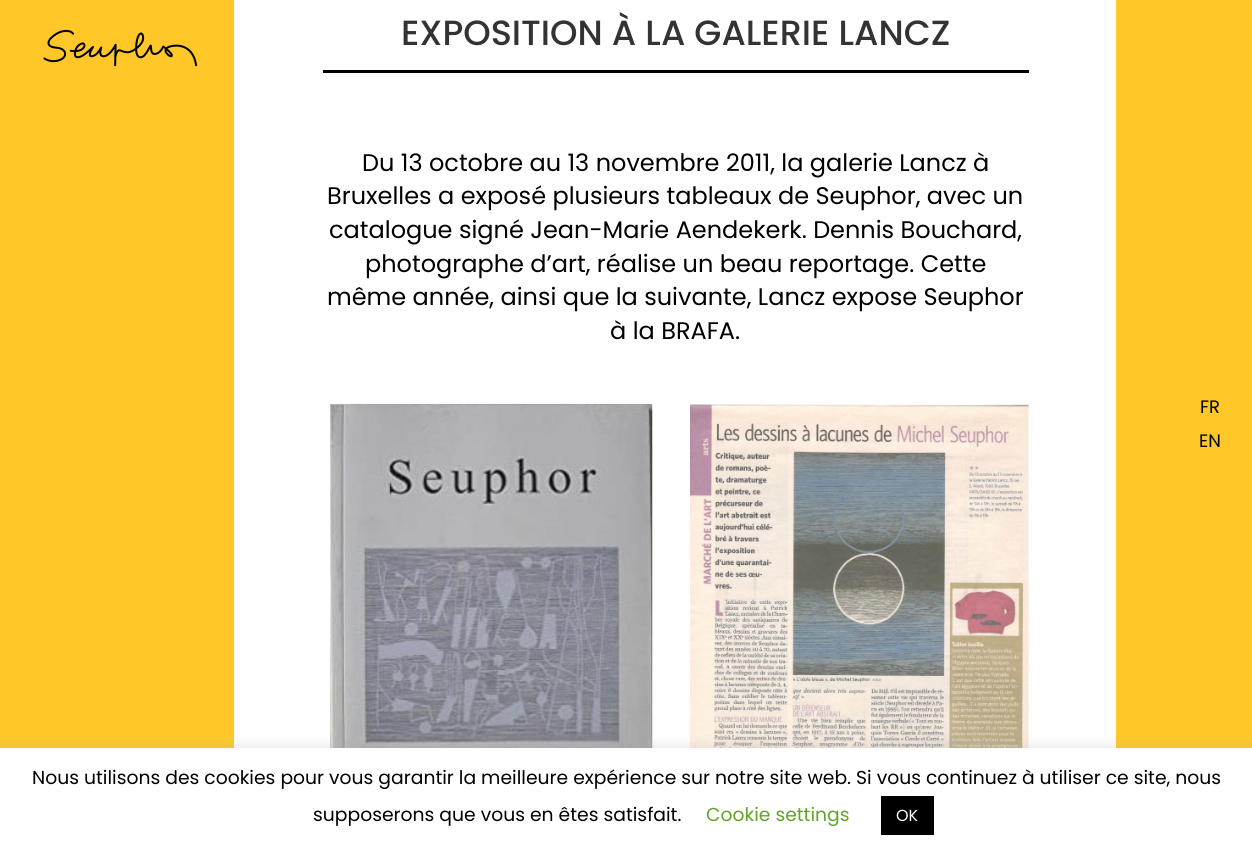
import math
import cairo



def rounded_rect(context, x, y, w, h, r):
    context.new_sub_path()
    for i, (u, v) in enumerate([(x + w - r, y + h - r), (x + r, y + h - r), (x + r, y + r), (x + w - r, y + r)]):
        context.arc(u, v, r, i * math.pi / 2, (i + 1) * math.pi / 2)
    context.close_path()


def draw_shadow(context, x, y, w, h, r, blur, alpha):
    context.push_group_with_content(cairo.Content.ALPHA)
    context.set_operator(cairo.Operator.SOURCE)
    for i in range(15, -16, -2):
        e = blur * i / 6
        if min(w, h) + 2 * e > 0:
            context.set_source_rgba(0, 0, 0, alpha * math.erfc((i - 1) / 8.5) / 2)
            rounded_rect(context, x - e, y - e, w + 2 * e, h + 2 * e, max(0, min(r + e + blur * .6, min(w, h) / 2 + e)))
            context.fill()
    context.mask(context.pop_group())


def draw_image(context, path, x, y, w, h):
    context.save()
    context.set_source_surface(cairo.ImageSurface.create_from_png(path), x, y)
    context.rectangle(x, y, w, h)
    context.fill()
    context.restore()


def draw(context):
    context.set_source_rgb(1, 200 / 255, 40 / 255)
    context.paint()
    draw_image(context, "images/1.png", 43, 29, 155, 38)
    context.set_source_rgb(1, 1, 1)
    context.rectangle(234, 0, 882, 748)
    context.fill()
    context.set_source_rgb(0, 0, 0)
    context.rectangle(323, 70, 706, 3)
    context.fill()
    draw_image(context, "images/2.png", 330, 403, 323, 345)
    draw_image(context, "images/3.png", 690, 404, 339, 344)
    context.set_source_rgb(172 / 255, 171 / 255, 171 / 255)
    draw_shadow(context, 0, 746, 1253, 109, 0, 6, 0.3)
    context.set_source_rgb(1, 1, 1)
    context.rectangle(0, 748, 1252, 108)
    context.fill()
    context.set_source_rgb(0, 0, 0)
    context.rectangle(881, 796, 53, 39)
    context.fill()
    context.select_font_face("Poppins Medium")
    context.set_font_size(35)
    context.set_source_rgb(51 / 255, 51 / 255, 51 / 255)
    context.move_to(401, 45)
    context.show_text("EXPOSITION À LA GALERIE LANCZ")
    context.select_font_face("Poppins")
    context.set_font_size(24)
    context.set_source_rgb(0, 0, 0)
    context.move_to(362, 171)
    context.show_text("Du 13 octobre au 13 novembre 2011, la galerie Lancz à")
    context.move_to(327, 204)
    context.show_text("Bruxelles a exposé plusieurs tableaux de Seuphor, avec un")
    context.move_to(329, 238)
    context.show_text("catalogue signé Jean-Marie Aendekerk. Dennis Bouchard,")
    context.move_to(365, 272)
    context.show_text("photographe d’art, réalise un beau reportage. Cette")
    context.move_to(327, 305)
    context.show_text("même année, ainsi que la suivante, Lancz expose Seuphor")
    context.move_to(610, 339)
    context.show_text("à la BRAFA.")
    context.set_font_size(18)
    context.move_to(1200, 413)
    context.show_text("FR")
    context.move_to(1199, 447)
    context.show_text("EN")
    context.set_font_size(18.75)
    context.move_to(32, 784)
    context.show_text("Nous utilisons des cookies pour vous garantir la meilleure expérience sur notre site web. Si vous continuez à utiliser ce site, nous")
    context.move_to(313, 821)
    context.show_text("supposerons que vous en êtes satisfait.")
    context.set_source_rgb(98 / 255, 163 / 255, 41 / 255)
    context.move_to(706, 821)
    context.show_text("Cookie settings")
    context.set_font_size(16)
    context.set_source_rgb(1, 1, 1)
    context.move_to(896, 821)
    context.show_text("OK")


surface = cairo.ImageSurface(cairo.Format.RGB24, 1252, 856)
context = cairo.Context(surface)
options = cairo.FontOptions()
options.set_hint_metrics(cairo.HintMetrics.OFF)
options.set_hint_style(cairo.HintStyle.NONE)
context.set_font_options(options)
context.set_miter_limit(4)
draw(context)
surface.write_to_png("out.png")
